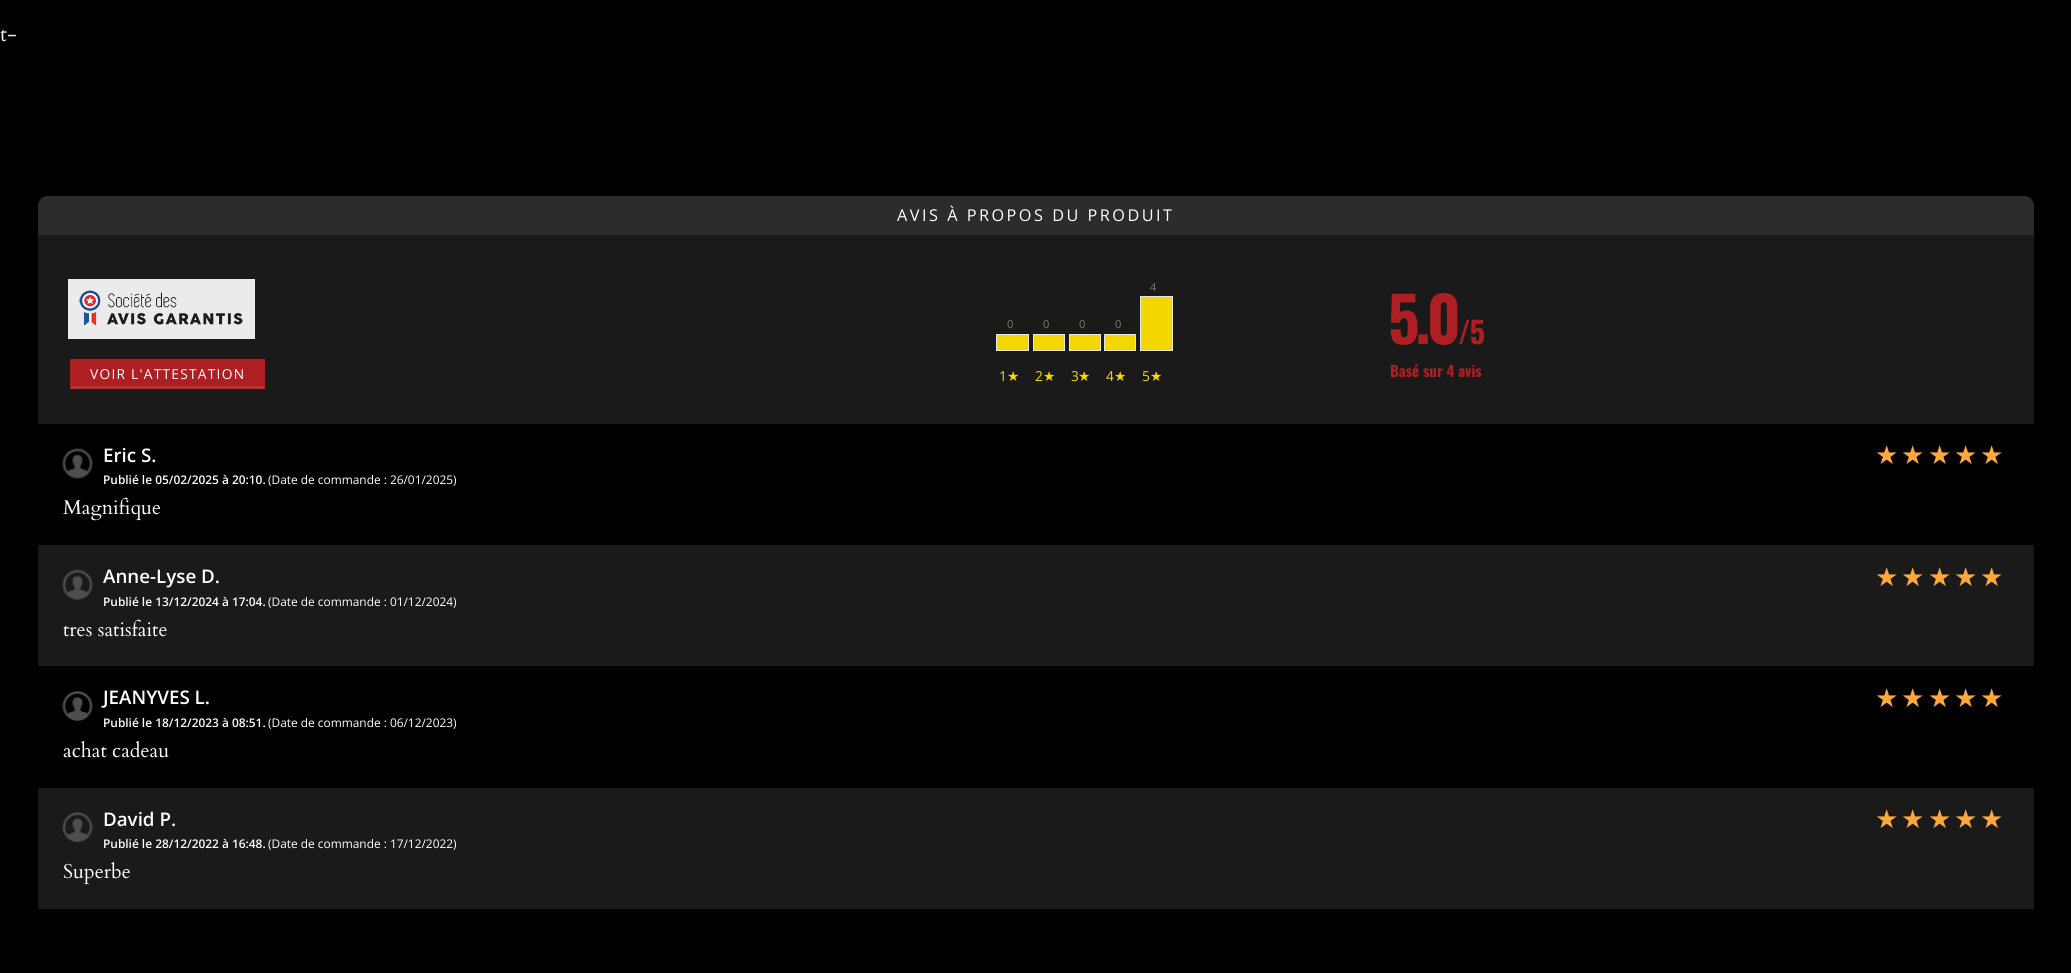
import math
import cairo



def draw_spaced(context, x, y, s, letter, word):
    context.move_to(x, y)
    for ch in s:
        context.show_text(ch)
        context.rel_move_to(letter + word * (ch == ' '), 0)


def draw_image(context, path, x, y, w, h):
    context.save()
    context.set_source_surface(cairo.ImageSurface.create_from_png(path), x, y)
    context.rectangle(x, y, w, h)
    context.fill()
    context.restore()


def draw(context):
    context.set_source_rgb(0, 0, 0)
    context.paint()
    context.set_source_rgb(44 / 255, 44 / 255, 44 / 255)
    context.new_path()
    context.move_to(48, 196)
    context.line_to(2024, 196)
    context.curve_to(2029.5, 196, 2034, 200.5, 2034, 206)
    context.line_to(2034, 235)
    context.line_to(38, 235)
    context.line_to(38, 206)
    context.curve_to(38, 200.5, 42.5, 196, 48, 196)
    context.close_path()
    context.fill()
    context.set_source_rgb(26 / 255, 26 / 255, 26 / 255)
    context.rectangle(38, 235, 1996, 189)
    context.fill()
    context.set_source_rgb(235 / 255, 235 / 255, 235 / 255)
    context.rectangle(68, 279, 187, 60)
    context.fill()
    draw_image(context, "images/1.png", 79, 290, 164, 36)
    context.set_source_rgb(174 / 255, 31 / 255, 36 / 255)
    context.rectangle(70, 359, 195, 30)
    context.fill()
    context.set_source_rgb(180 / 255, 51 / 255, 56 / 255)
    context.new_path()
    context.move_to(265, 389)
    context.line_to(70, 389)
    context.line_to(71, 386)
    context.line_to(264, 386)
    context.close_path()
    context.fill()
    context.set_source_rgb(174 / 255, 31 / 255, 36 / 255)
    context.new_path()
    context.move_to(70, 389)
    context.line_to(70, 359)
    context.line_to(71, 360)
    context.line_to(71, 386)
    context.close_path()
    context.fill()
    context.set_source_rgb(245 / 255, 215 / 255, 0)
    context.rectangle(996.5, 334.5, 32, 16)
    context.fill_preserve()
    context.set_source_rgb(232 / 255, 232 / 255, 225 / 255)
    context.set_line_width(1)
    context.stroke()
    context.set_source_rgb(245 / 255, 215 / 255, 0)
    context.rectangle(1033.5, 334.5, 31, 16)
    context.fill_preserve()
    context.set_source_rgb(232 / 255, 232 / 255, 225 / 255)
    context.stroke()
    context.set_source_rgb(245 / 255, 215 / 255, 0)
    context.rectangle(1069.5, 334.5, 31, 16)
    context.fill_preserve()
    context.set_source_rgb(232 / 255, 232 / 255, 225 / 255)
    context.stroke()
    context.set_source_rgb(245 / 255, 215 / 255, 0)
    context.rectangle(1104.5, 334.5, 31, 16)
    context.fill_preserve()
    context.set_source_rgb(232 / 255, 232 / 255, 225 / 255)
    context.stroke()
    context.set_source_rgb(245 / 255, 215 / 255, 0)
    context.rectangle(1140.5, 296.5, 32, 54)
    context.fill_preserve()
    context.set_source_rgb(232 / 255, 232 / 255, 225 / 255)
    context.stroke()
    draw_image(context, "images/2.png", 62, 448, 31, 31)
    context.set_source_rgb(26 / 255, 26 / 255, 26 / 255)
    context.rectangle(38, 545, 1996, 121)
    context.fill()
    draw_image(context, "images/3.png", 62, 569, 31, 31)
    draw_image(context, "images/4.png", 62, 691, 31, 30)
    context.rectangle(38, 788, 1996, 121)
    context.fill()
    draw_image(context, "images/5.png", 62, 812, 31, 31)
    context.select_font_face("Cardo")
    context.set_font_size(22)
    context.set_source_rgb(237 / 255, 235 / 255, 235 / 255)
    context.move_to(0, 41)
    context.show_text("t-")
    context.select_font_face("Open Sans")
    context.set_font_size(16.25)
    context.set_source_rgb(1, 1, 1)
    draw_spaced(context, 897, 221, "AVIS À PROPOS DU PRODUIT", 2.5, 0)
    context.set_font_size(13.75)
    draw_spaced(context, 90, 379, "VOIR L'ATTESTATION", 1.25, 0)
    context.set_font_size(11)
    context.set_source_rgb(119 / 255, 119 / 255, 119 / 255)
    context.move_to(1007, 328)
    context.show_text("0")
    context.set_font_size(13.75)
    context.set_source_rgb(245 / 255, 215 / 255, 0)
    context.move_to(999, 381)
    context.show_text("1")
    context.select_font_face("DejaVu Sans")
    context.move_to(1007, 381)
    context.show_text("★")
    context.select_font_face("Open Sans")
    context.set_font_size(11)
    context.set_source_rgb(119 / 255, 119 / 255, 119 / 255)
    context.move_to(1043, 328)
    context.show_text("0")
    context.set_font_size(13.75)
    context.set_source_rgb(245 / 255, 215 / 255, 0)
    context.move_to(1035, 381)
    context.show_text("2")
    context.select_font_face("DejaVu Sans")
    context.move_to(1043, 381)
    context.show_text("★")
    context.select_font_face("Open Sans")
    context.set_font_size(11)
    context.set_source_rgb(119 / 255, 119 / 255, 119 / 255)
    context.move_to(1079, 328)
    context.show_text("0")
    context.set_font_size(13.75)
    context.set_source_rgb(245 / 255, 215 / 255, 0)
    context.move_to(1071, 381)
    context.show_text("3")
    context.select_font_face("DejaVu Sans")
    context.move_to(1078, 381)
    context.show_text("★")
    context.select_font_face("Open Sans")
    context.set_font_size(11)
    context.set_source_rgb(119 / 255, 119 / 255, 119 / 255)
    context.move_to(1115, 328)
    context.show_text("0")
    context.set_font_size(13.75)
    context.set_source_rgb(245 / 255, 215 / 255, 0)
    context.move_to(1106, 381)
    context.show_text("4")
    context.select_font_face("DejaVu Sans")
    context.move_to(1114, 381)
    context.show_text("★")
    context.select_font_face("Open Sans")
    context.set_font_size(11)
    context.set_source_rgb(119 / 255, 119 / 255, 119 / 255)
    context.move_to(1150, 291)
    context.show_text("4")
    context.set_font_size(13.75)
    context.set_source_rgb(245 / 255, 215 / 255, 0)
    context.move_to(1142, 381)
    context.show_text("5")
    context.select_font_face("DejaVu Sans")
    context.move_to(1150, 381)
    context.show_text("★")
    context.select_font_face("Oswald", cairo.FontSlant.NORMAL, cairo.FontWeight.BOLD)
    context.set_font_size(62)
    context.set_source_rgb(174 / 255, 31 / 255, 36 / 255)
    draw_spaced(context, 1388, 344, "5.0", -4, 0)
    context.set_font_size(30)
    draw_spaced(context, 1458, 344, "/5", -1, 0)
    context.set_font_size(15)
    context.move_to(1390, 377)
    context.show_text("Basé sur 4 avis")
    context.select_font_face("DejaVu Sans")
    context.set_font_size(26)
    context.set_source_rgb(1, 169 / 255, 60 / 255)
    context.move_to(1875, 464)
    context.show_text("★")
    context.move_to(1901, 464)
    context.show_text("★")
    context.move_to(1928, 464)
    context.show_text("★")
    context.move_to(1954, 464)
    context.show_text("★")
    context.move_to(1980, 464)
    context.show_text("★")
    context.select_font_face("Cardo")
    context.set_font_size(20)
    context.set_source_rgb(1, 1, 1)
    context.move_to(63, 514)
    context.show_text("Magnifique")
    context.select_font_face("Open Sans SemiBold")
    context.set_font_size(18.75)
    context.move_to(103, 462)
    context.show_text("Eric S.")
    context.set_font_size(11.9)
    context.move_to(103, 484)
    context.show_text("Publié le 05/02/2025 à 20:10.")
    context.select_font_face("Open Sans")
    context.move_to(268, 484)
    context.show_text("(Date de commande : 26/01/2025)")
    context.select_font_face("DejaVu Sans")
    context.set_font_size(26)
    context.set_source_rgb(1, 169 / 255, 60 / 255)
    context.move_to(1875, 586)
    context.show_text("★")
    context.move_to(1901, 586)
    context.show_text("★")
    context.move_to(1928, 586)
    context.show_text("★")
    context.move_to(1954, 586)
    context.show_text("★")
    context.move_to(1980, 586)
    context.show_text("★")
    context.select_font_face("Cardo")
    context.set_font_size(20)
    context.set_source_rgb(1, 1, 1)
    context.move_to(63, 636)
    context.show_text("tres satisfaite")
    context.select_font_face("Open Sans SemiBold")
    context.set_font_size(18.75)
    context.move_to(103, 583)
    context.show_text("Anne-Lyse D.")
    context.set_font_size(11.9)
    context.move_to(103, 606)
    context.show_text("Publié le 13/12/2024 à 17:04.")
    context.select_font_face("Open Sans")
    context.move_to(268, 606)
    context.show_text("(Date de commande : 01/12/2024)")
    context.select_font_face("DejaVu Sans")
    context.set_font_size(26)
    context.set_source_rgb(1, 169 / 255, 60 / 255)
    context.move_to(1875, 707)
    context.show_text("★")
    context.move_to(1901, 707)
    context.show_text("★")
    context.move_to(1928, 707)
    context.show_text("★")
    context.move_to(1954, 707)
    context.show_text("★")
    context.move_to(1980, 707)
    context.show_text("★")
    context.select_font_face("Cardo")
    context.set_font_size(20)
    context.set_source_rgb(1, 1, 1)
    context.move_to(63, 757)
    context.show_text("achat cadeau")
    context.select_font_face("Open Sans SemiBold")
    context.set_font_size(18.75)
    context.move_to(103, 704)
    context.show_text("JEANYVES L.")
    context.set_font_size(11.9)
    context.move_to(103, 727)
    context.show_text("Publié le 18/12/2023 à 08:51.")
    context.select_font_face("Open Sans")
    context.move_to(268, 727)
    context.show_text("(Date de commande : 06/12/2023)")
    context.select_font_face("DejaVu Sans")
    context.set_font_size(26)
    context.set_source_rgb(1, 169 / 255, 60 / 255)
    context.move_to(1875, 828)
    context.show_text("★")
    context.move_to(1901, 828)
    context.show_text("★")
    context.move_to(1928, 828)
    context.show_text("★")
    context.move_to(1954, 828)
    context.show_text("★")
    context.move_to(1980, 828)
    context.show_text("★")
    context.select_font_face("Cardo")
    context.set_font_size(20)
    context.set_source_rgb(1, 1, 1)
    context.move_to(63, 878)
    context.show_text("Superbe")
    context.select_font_face("Open Sans SemiBold")
    context.set_font_size(18.75)
    context.move_to(103, 826)
    context.show_text("David P.")
    context.set_font_size(11.9)
    context.move_to(103, 848)
    context.show_text("Publié le 28/12/2022 à 16:48.")
    context.select_font_face("Open Sans")
    context.move_to(268, 848)
    context.show_text("(Date de commande : 17/12/2022)")


surface = cairo.ImageSurface(cairo.Format.RGB24, 2071, 973)
context = cairo.Context(surface)
options = cairo.FontOptions()
options.set_hint_metrics(cairo.HintMetrics.OFF)
options.set_hint_style(cairo.HintStyle.NONE)
context.set_font_options(options)
context.set_miter_limit(4)
draw(context)
surface.write_to_png("out.png")
